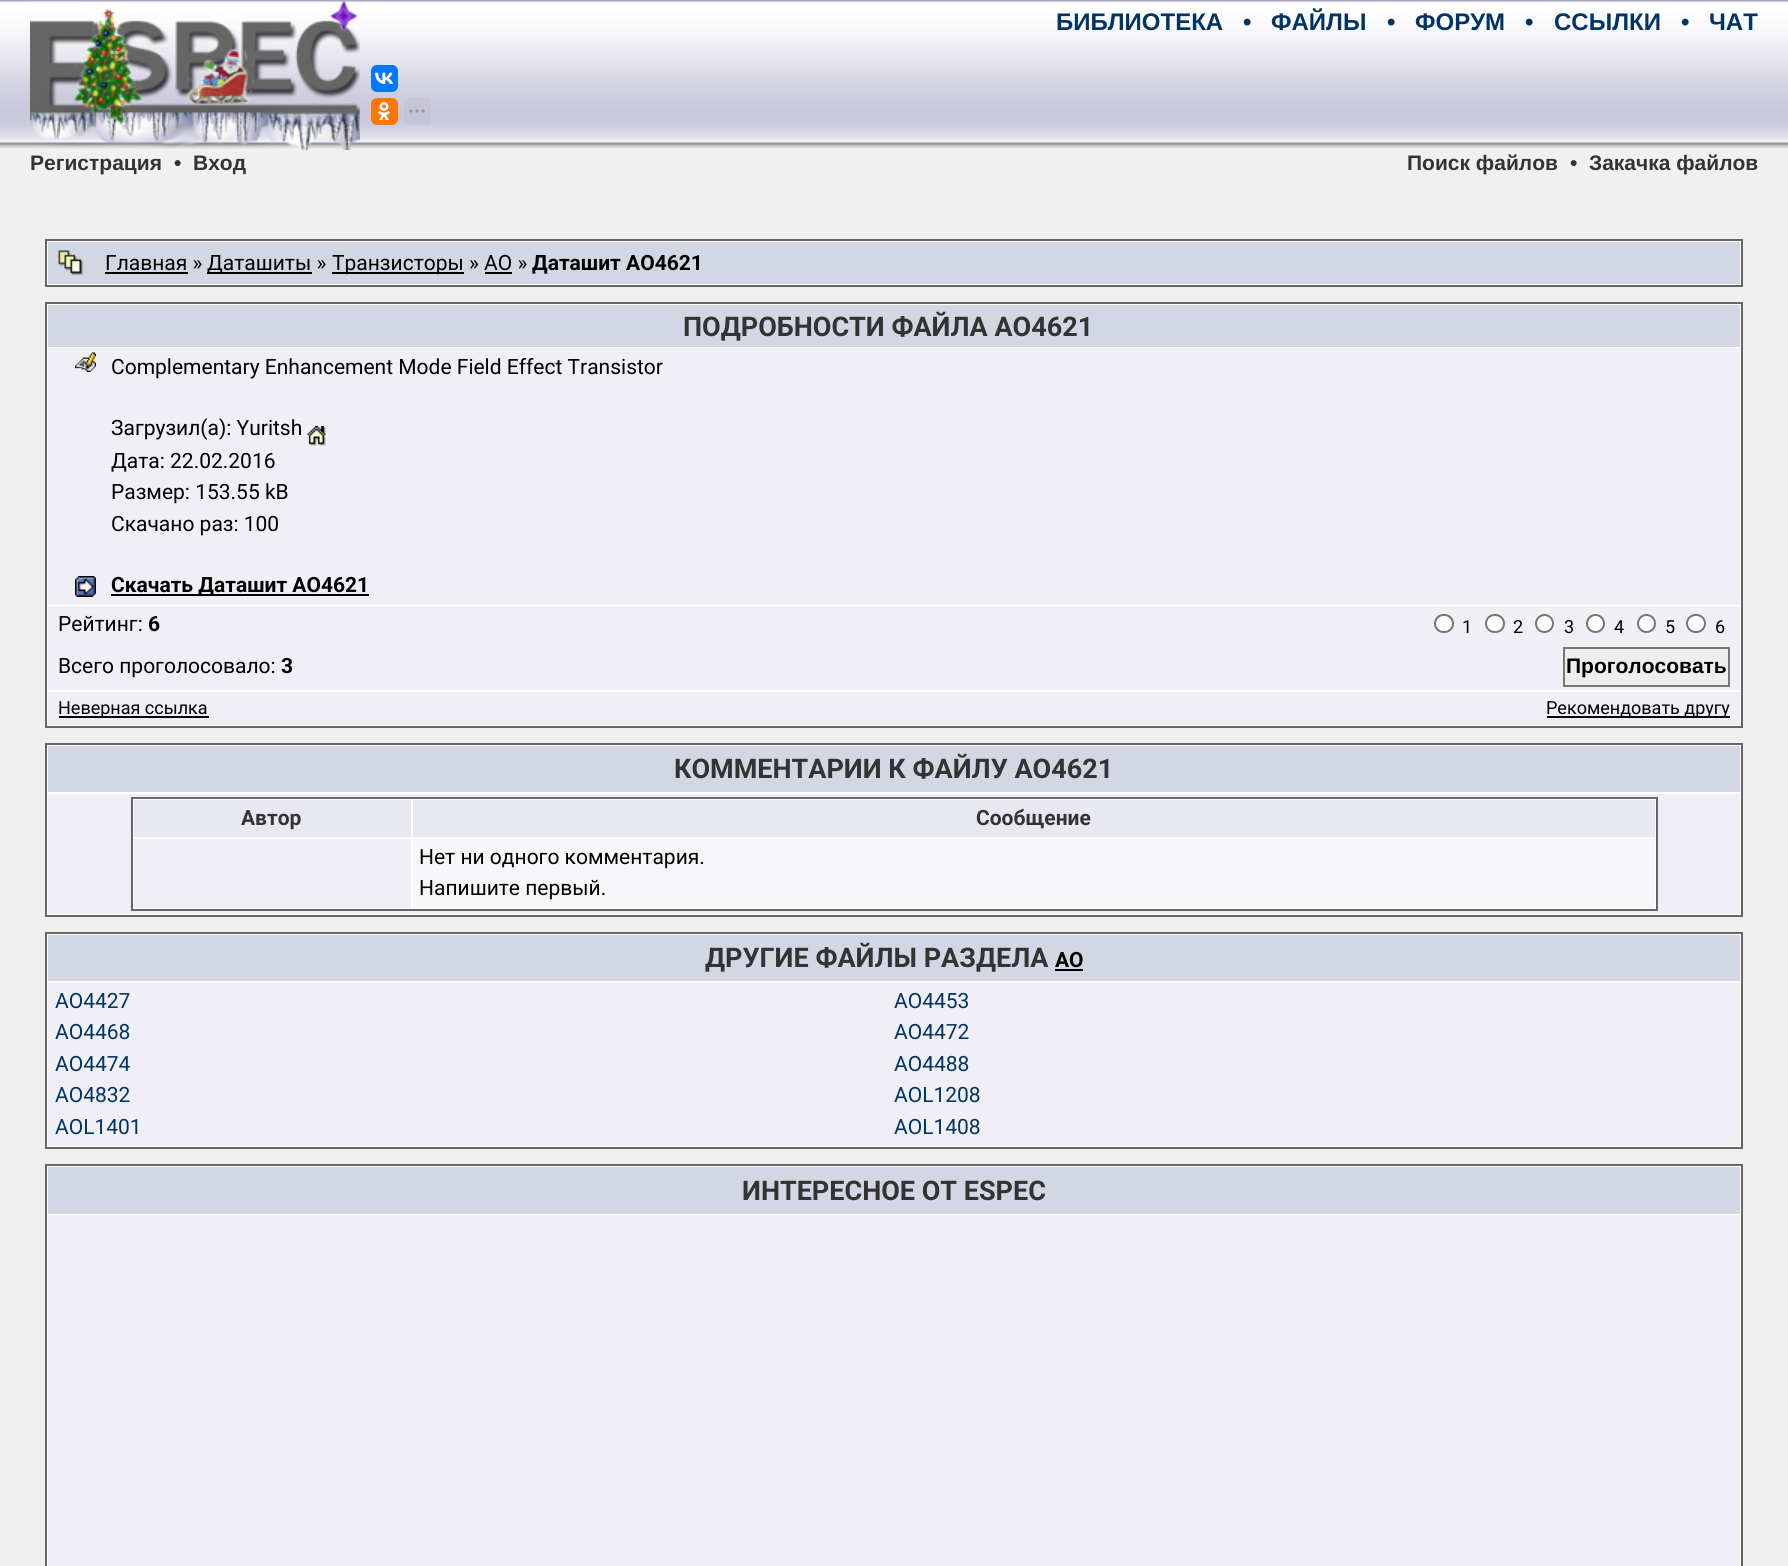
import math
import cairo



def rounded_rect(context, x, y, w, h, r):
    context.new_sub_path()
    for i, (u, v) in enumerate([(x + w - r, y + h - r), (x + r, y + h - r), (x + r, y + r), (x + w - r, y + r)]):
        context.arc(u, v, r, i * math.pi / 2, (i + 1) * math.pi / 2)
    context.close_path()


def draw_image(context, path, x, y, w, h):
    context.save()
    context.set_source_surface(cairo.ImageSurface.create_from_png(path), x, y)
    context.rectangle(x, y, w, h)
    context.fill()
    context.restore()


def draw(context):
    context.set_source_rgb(240 / 255, 240 / 255, 240 / 255)
    context.paint()
    draw_image(context, "images/1.png", 0, 0, 1788, 148)
    draw_image(context, "images/2.png", 30, 1, 330, 149)
    context.set_source_rgb(0, 119 / 255, 1)
    rounded_rect(context, 371, 65, 27, 27, 6)
    context.fill()
    draw_image(context, "images/3.png", 375, 72, 18, 12)
    context.set_source_rgb(1, 119 / 255, 0)
    rounded_rect(context, 371, 98, 27, 27, 6)
    context.fill()
    draw_image(context, "images/4.png", 378, 102, 12, 18)
    context.set_source_rgba(0, 0, 0, 0.03)
    context.rectangle(404, 98, 27, 27)
    context.fill()
    draw_image(context, "images/5.png", 409, 109, 16, 4)
    context.set_source_rgb(1, 1, 1)
    context.rectangle(46, 240, 1696, 46)
    context.fill_preserve()
    context.set_source_rgb(102 / 255, 102 / 255, 102 / 255)
    context.stroke()
    context.set_source_rgb(210 / 255, 215 / 255, 227 / 255)
    context.rectangle(48, 242, 1692, 42)
    context.fill()
    draw_image(context, "images/6.png", 58, 250, 25, 25)
    context.set_source_rgb(0, 0, 0)
    context.rectangle(105, 272, 83, 2)
    context.fill()
    context.rectangle(207, 272, 105, 2)
    context.fill()
    context.rectangle(332, 272, 132, 2)
    context.fill()
    context.rectangle(485, 272, 27, 2)
    context.fill()
    context.set_source_rgb(1, 1, 1)
    context.rectangle(46, 303, 1696, 424)
    context.fill_preserve()
    context.set_source_rgb(102 / 255, 102 / 255, 102 / 255)
    context.stroke()
    context.set_source_rgb(210 / 255, 215 / 255, 227 / 255)
    context.rectangle(48, 305, 1692, 42)
    context.fill()
    context.set_source_rgb(239 / 255, 239 / 255, 245 / 255)
    context.rectangle(48, 348, 1692, 257)
    context.fill()
    draw_image(context, "images/7.png", 75, 352, 21, 20)
    draw_image(context, "images/8.png", 307, 426, 19, 20)
    draw_image(context, "images/9.png", 75, 576, 21, 21)
    context.set_source_rgb(0, 0, 0)
    context.rectangle(111, 594, 258, 2)
    context.fill()
    context.set_source_rgb(239 / 255, 239 / 255, 245 / 255)
    context.rectangle(48, 606, 1692, 84)
    context.fill()
    context.set_source_rgb(1, 1, 1)
    rounded_rect(context, 1435, 615, 18, 17, 8.5)
    context.fill_preserve()
    context.set_source_rgb(118 / 255, 118 / 255, 118 / 255)
    context.stroke()
    context.set_source_rgb(1, 1, 1)
    rounded_rect(context, 1486, 615, 18, 17, 8.5)
    context.fill_preserve()
    context.set_source_rgb(118 / 255, 118 / 255, 118 / 255)
    context.stroke()
    context.set_source_rgb(1, 1, 1)
    context.arc(1544.5, 623.5, 8.5, 0, 2 * math.pi)
    context.fill_preserve()
    context.set_source_rgb(118 / 255, 118 / 255, 118 / 255)
    context.stroke()
    context.set_source_rgb(1, 1, 1)
    context.arc(1595.5, 623.5, 8.5, 0, 2 * math.pi)
    context.fill_preserve()
    context.set_source_rgb(118 / 255, 118 / 255, 118 / 255)
    context.stroke()
    context.set_source_rgb(1, 1, 1)
    context.arc(1646.5, 623.5, 8.5, 0, 2 * math.pi)
    context.fill_preserve()
    context.set_source_rgb(118 / 255, 118 / 255, 118 / 255)
    context.stroke()
    context.set_source_rgb(1, 1, 1)
    rounded_rect(context, 1687, 615, 18, 17, 8.5)
    context.fill_preserve()
    context.set_source_rgb(118 / 255, 118 / 255, 118 / 255)
    context.stroke()
    context.set_source_rgb(238 / 255, 238 / 255, 238 / 255)
    context.rectangle(1564, 648, 165, 38)
    context.fill_preserve()
    context.set_source_rgb(119 / 255, 119 / 255, 119 / 255)
    context.stroke()
    context.set_source_rgb(239 / 255, 239 / 255, 245 / 255)
    context.rectangle(48, 692, 1692, 33)
    context.fill()
    context.set_source_rgb(0, 0, 0)
    context.rectangle(59, 716, 150, 2)
    context.fill()
    context.rectangle(1547, 716, 183, 2)
    context.fill()
    context.set_source_rgb(1, 1, 1)
    context.rectangle(46, 744, 1696, 172)
    context.fill_preserve()
    context.set_source_rgb(102 / 255, 102 / 255, 102 / 255)
    context.stroke()
    context.set_source_rgb(210 / 255, 215 / 255, 227 / 255)
    context.rectangle(48, 746, 1692, 46)
    context.fill()
    context.set_source_rgb(239 / 255, 239 / 255, 245 / 255)
    context.rectangle(48, 794, 1692, 120)
    context.fill()
    context.set_source_rgb(1, 1, 1)
    context.rectangle(132, 798, 1525, 112)
    context.fill_preserve()
    context.set_source_rgb(102 / 255, 102 / 255, 102 / 255)
    context.stroke()
    context.set_source_rgb(232 / 255, 232 / 255, 240 / 255)
    context.rectangle(134, 800, 277, 37)
    context.fill()
    context.rectangle(413, 800, 1242, 37)
    context.fill()
    context.set_source_rgb(239 / 255, 239 / 255, 245 / 255)
    context.rectangle(134, 839, 277, 69)
    context.fill()
    context.set_source_rgb(247 / 255, 247 / 255, 250 / 255)
    context.rectangle(413, 839, 1242, 69)
    context.fill()
    context.set_source_rgb(1, 1, 1)
    context.rectangle(46, 933, 1696, 215)
    context.fill_preserve()
    context.set_source_rgb(102 / 255, 102 / 255, 102 / 255)
    context.stroke()
    context.set_source_rgb(210 / 255, 215 / 255, 227 / 255)
    context.rectangle(48, 935, 1692, 46)
    context.fill()
    context.set_source_rgb(0, 0, 0)
    context.rectangle(1055, 969, 28, 2)
    context.fill()
    context.set_source_rgb(239 / 255, 239 / 255, 245 / 255)
    context.rectangle(48, 983, 1692, 163)
    context.fill()
    context.set_source_rgb(1, 1, 1)
    context.rectangle(46, 1165, 1696, 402)
    context.fill_preserve()
    context.set_source_rgb(102 / 255, 102 / 255, 102 / 255)
    context.stroke()
    context.set_source_rgb(210 / 255, 215 / 255, 227 / 255)
    context.rectangle(48, 1167, 1692, 47)
    context.fill()
    context.set_source_rgb(239 / 255, 239 / 255, 245 / 255)
    context.rectangle(48, 1215, 1692, 351)
    context.fill()
    context.select_font_face("Liberation Sans", cairo.FontSlant.NORMAL, cairo.FontWeight.BOLD)
    context.set_font_size(24)
    context.set_source_rgb(0, 51 / 255, 102 / 255)
    context.move_to(1056, 30)
    context.show_text("БИБЛИОТЕКА")
    context.move_to(1243, 30)
    context.show_text("•")
    context.move_to(1271, 30)
    context.show_text("ФАЙЛЫ")
    context.move_to(1387, 30)
    context.show_text("•")
    context.move_to(1415, 30)
    context.show_text("ФОРУМ")
    context.move_to(1525, 30)
    context.show_text("•")
    context.move_to(1554, 30)
    context.show_text("ССЫЛКИ")
    context.move_to(1681, 30)
    context.show_text("•")
    context.move_to(1709, 30)
    context.show_text("ЧАТ")
    context.set_font_size(21)
    context.set_source_rgb(51 / 255, 51 / 255, 51 / 255)
    context.move_to(30, 170)
    context.show_text("Регистрация")
    context.move_to(174, 170)
    context.show_text("•")
    context.move_to(193, 170)
    context.show_text("Вход")
    context.move_to(1407, 170)
    context.show_text("Поиск файлов")
    context.move_to(1570, 170)
    context.show_text("•")
    context.move_to(1589, 170)
    context.show_text("Закачка файлов")
    context.select_font_face("Roboto")
    context.set_source_rgb(0, 0, 0)
    context.move_to(105, 270)
    context.show_text("Главная »")
    context.move_to(207, 270)
    context.show_text("Даташиты »")
    context.move_to(332, 270)
    context.show_text("Транзисторы » AO »")
    context.select_font_face("Roboto", cairo.FontSlant.NORMAL, cairo.FontWeight.BOLD)
    context.move_to(532, 270)
    context.show_text("Даташит AO4621")
    context.set_font_size(27)
    context.set_source_rgb(51 / 255, 51 / 255, 51 / 255)
    context.move_to(683, 336)
    context.show_text("ПОДРОБНОСТИ ФАЙЛА AO4621")
    context.select_font_face("Roboto")
    context.set_font_size(21)
    context.set_source_rgb(0, 0, 0)
    context.move_to(111, 374)
    context.show_text("Complementary Enhancement Mode Field Effect Transistor")
    context.move_to(111, 435)
    context.show_text("Загрузил(а): Yuritsh")
    context.move_to(111, 468)
    context.show_text("Дата: 22.02.2016")
    context.move_to(111, 499)
    context.show_text("Размер: 153.55 kB")
    context.move_to(111, 531)
    context.show_text("Скачано раз: 100")
    context.select_font_face("Roboto", cairo.FontSlant.NORMAL, cairo.FontWeight.BOLD)
    context.move_to(111, 592)
    context.show_text("Скачать Даташит AO4621")
    context.select_font_face("Roboto")
    context.move_to(58, 631)
    context.show_text("Рейтинг:")
    context.select_font_face("Roboto", cairo.FontSlant.NORMAL, cairo.FontWeight.BOLD)
    context.move_to(148, 631)
    context.show_text("6")
    context.select_font_face("Roboto")
    context.set_font_size(18)
    context.move_to(1462, 633)
    context.show_text("1")
    context.move_to(1513, 633)
    context.show_text("2")
    context.move_to(1564, 633)
    context.show_text("3")
    context.move_to(1614, 633)
    context.show_text("4")
    context.move_to(1665, 633)
    context.show_text("5")
    context.move_to(1715, 633)
    context.show_text("6")
    context.set_font_size(21)
    context.move_to(58, 673)
    context.show_text("Всего проголосовало:")
    context.select_font_face("Roboto", cairo.FontSlant.NORMAL, cairo.FontWeight.BOLD)
    context.move_to(281, 673)
    context.show_text("3")
    context.select_font_face("Liberation Sans", cairo.FontSlant.NORMAL, cairo.FontWeight.BOLD)
    context.move_to(1566, 673)
    context.show_text("Проголосовать")
    context.select_font_face("Roboto")
    context.set_font_size(18)
    context.move_to(58, 714)
    context.show_text("Неверная ссылка")
    context.move_to(1546, 714)
    context.show_text("Рекомендовать другу")
    context.select_font_face("Roboto", cairo.FontSlant.NORMAL, cairo.FontWeight.BOLD)
    context.set_font_size(27)
    context.set_source_rgb(51 / 255, 51 / 255, 51 / 255)
    context.move_to(674, 778)
    context.show_text("КОММЕНТАРИИ К ФАЙЛУ AO4621")
    context.set_font_size(21)
    context.move_to(241, 825)
    context.show_text("Автор")
    context.move_to(976, 825)
    context.show_text("Сообщение")
    context.select_font_face("Roboto")
    context.set_source_rgb(0, 0, 0)
    context.move_to(419, 864)
    context.show_text("Нет ни одного комментария.")
    context.move_to(419, 895)
    context.show_text("Напишите первый.")
    context.select_font_face("Roboto", cairo.FontSlant.NORMAL, cairo.FontWeight.BOLD)
    context.set_font_size(27)
    context.set_source_rgb(51 / 255, 51 / 255, 51 / 255)
    context.move_to(705, 967)
    context.show_text("ДРУГИЕ ФАЙЛЫ РАЗДЕЛА")
    context.set_font_size(21)
    context.set_source_rgb(0, 0, 0)
    context.move_to(1055, 967)
    context.show_text("AO")
    context.select_font_face("Roboto")
    context.set_source_rgb(0, 51 / 255, 102 / 255)
    context.move_to(55, 1008)
    context.show_text("AO4427")
    context.move_to(894, 1008)
    context.show_text("AO4453")
    context.move_to(55, 1039)
    context.show_text("AO4468")
    context.move_to(894, 1039)
    context.show_text("AO4472")
    context.move_to(55, 1071)
    context.show_text("AO4474")
    context.move_to(894, 1071)
    context.show_text("AO4488")
    context.move_to(55, 1102)
    context.show_text("AO4832")
    context.move_to(894, 1102)
    context.show_text("AOL1208")
    context.move_to(55, 1134)
    context.show_text("AOL1401")
    context.move_to(894, 1134)
    context.show_text("AOL1408")
    context.select_font_face("Roboto", cairo.FontSlant.NORMAL, cairo.FontWeight.BOLD)
    context.set_font_size(27)
    context.set_source_rgb(51 / 255, 51 / 255, 51 / 255)
    context.move_to(742, 1200)
    context.show_text("ИНТЕРЕСНОЕ ОТ ESPEC")


surface = cairo.ImageSurface(cairo.Format.RGB24, 1788, 1566)
context = cairo.Context(surface)
options = cairo.FontOptions()
options.set_hint_metrics(cairo.HintMetrics.OFF)
options.set_hint_style(cairo.HintStyle.NONE)
context.set_font_options(options)
context.set_miter_limit(4)
draw(context)
surface.write_to_png("out.png")
